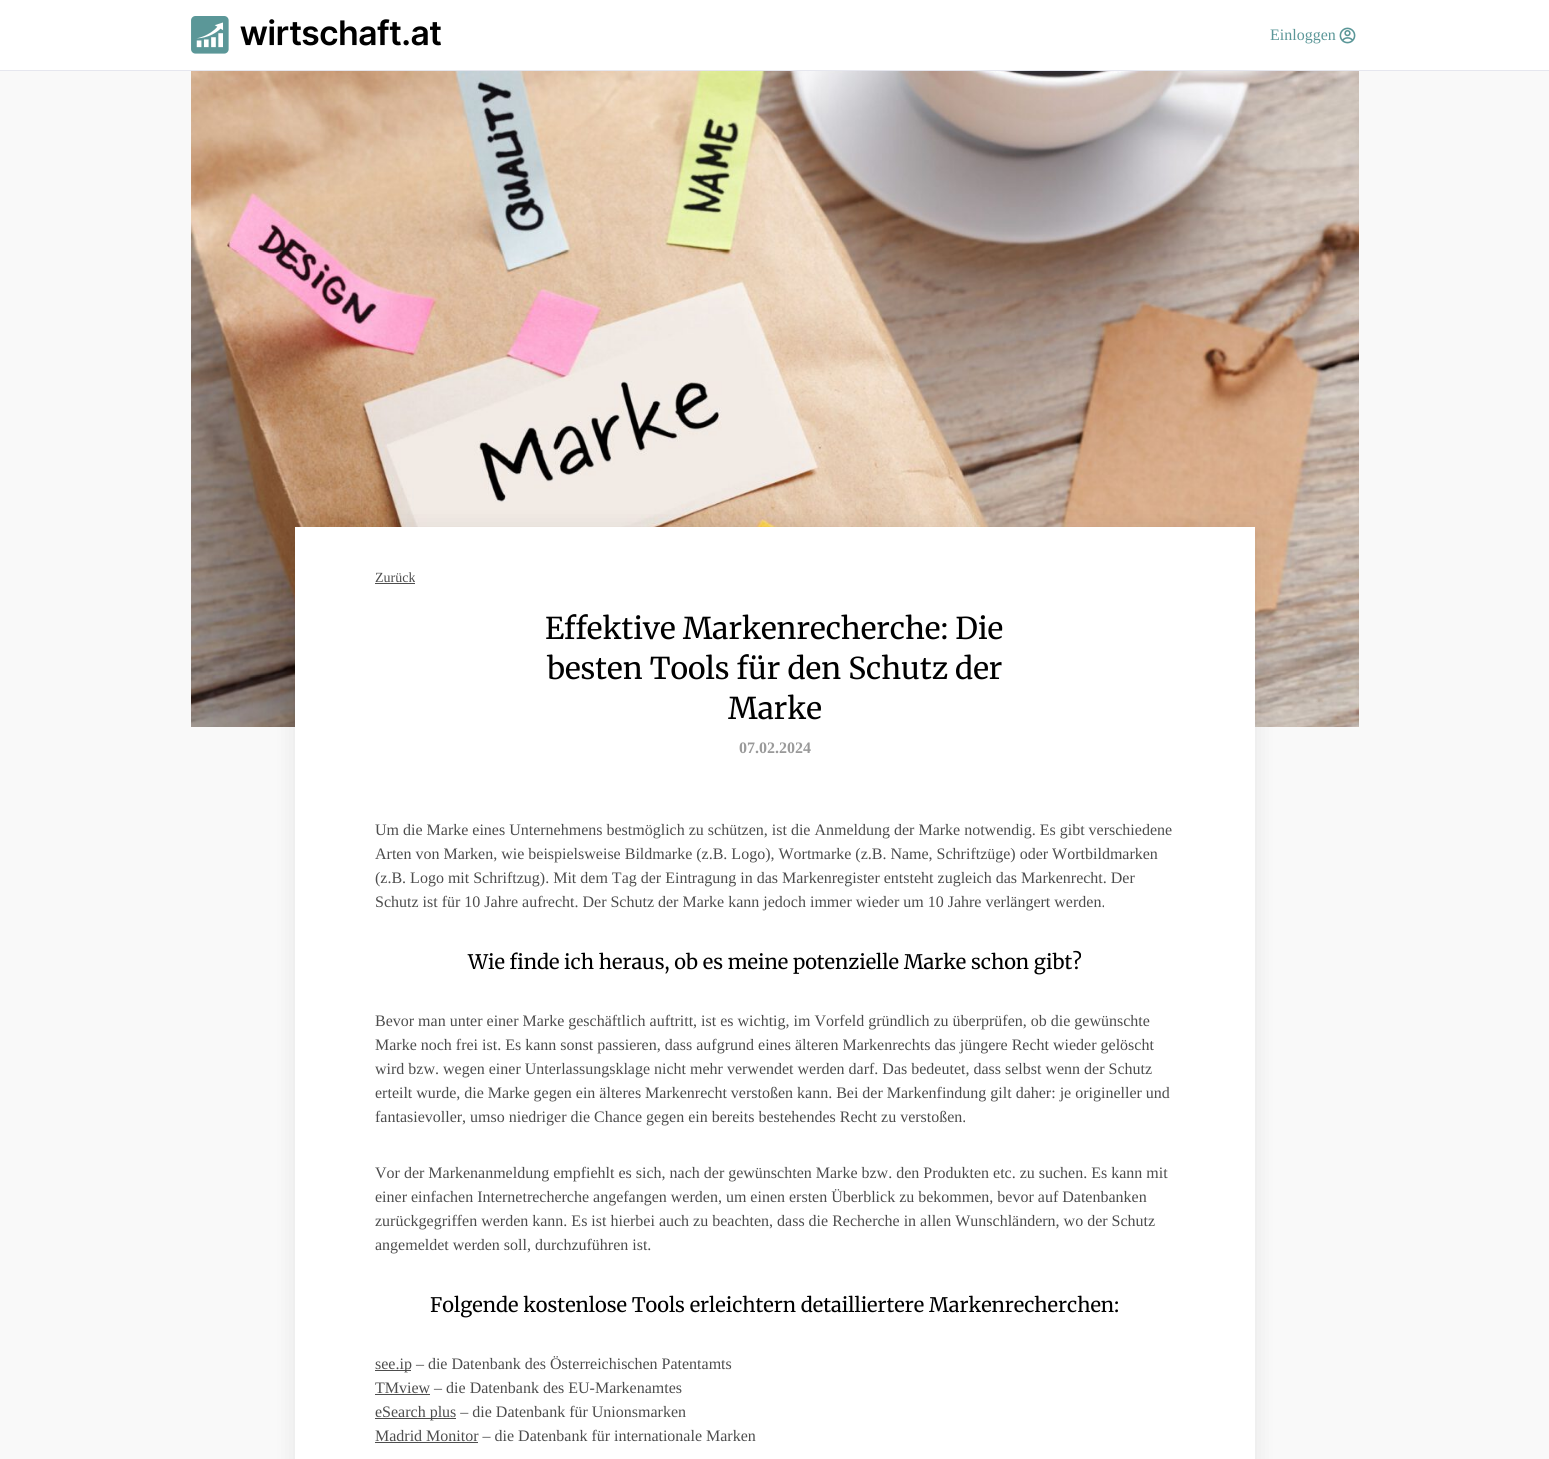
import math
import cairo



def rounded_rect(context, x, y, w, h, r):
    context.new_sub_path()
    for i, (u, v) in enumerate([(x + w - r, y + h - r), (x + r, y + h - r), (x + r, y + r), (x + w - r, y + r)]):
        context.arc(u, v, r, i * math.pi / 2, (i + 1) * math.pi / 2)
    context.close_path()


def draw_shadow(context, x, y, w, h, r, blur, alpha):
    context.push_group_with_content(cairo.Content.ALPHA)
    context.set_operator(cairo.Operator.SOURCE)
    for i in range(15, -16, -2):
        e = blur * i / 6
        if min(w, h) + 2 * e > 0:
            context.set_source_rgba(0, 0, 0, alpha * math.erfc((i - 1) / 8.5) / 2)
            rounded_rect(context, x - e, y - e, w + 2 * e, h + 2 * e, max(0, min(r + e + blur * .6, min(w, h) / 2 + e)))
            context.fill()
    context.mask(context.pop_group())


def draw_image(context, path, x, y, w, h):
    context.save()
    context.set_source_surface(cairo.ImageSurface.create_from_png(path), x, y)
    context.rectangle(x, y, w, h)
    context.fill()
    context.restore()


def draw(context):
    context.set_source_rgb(249 / 255, 249 / 255, 249 / 255)
    context.paint()
    context.set_source_rgb(1, 1, 1)
    context.rectangle(0, 0, 1549, 70)
    context.fill()
    context.set_source_rgb(230 / 255, 231 / 255, 239 / 255)
    context.rectangle(0, 70, 1549, 1)
    context.fill()
    draw_image(context, "images/1.png", 191, 16, 250, 38)
    draw_image(context, "images/2.png", 1339, 27, 17, 17)
    draw_image(context, "images/3.png", 191, 71, 1168, 656)
    context.set_source_rgb(0, 0, 0)
    draw_shadow(context, 295, 528, 960, 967, 0, 12, 0.08)
    context.set_source_rgb(1, 1, 1)
    context.rectangle(295, 527, 960, 932)
    context.fill()
    context.set_source_rgb(77 / 255, 77 / 255, 77 / 255)
    context.rectangle(375, 583, 40, 1)
    context.fill()
    context.rectangle(375, 1370, 36, 1)
    context.fill()
    context.rectangle(375, 1394, 55, 1)
    context.fill()
    context.rectangle(375, 1418, 81, 1)
    context.fill()
    context.rectangle(375, 1442, 103, 1)
    context.fill()
    context.select_font_face("Liberation Serif")
    context.set_font_size(16)
    context.set_source_rgb(91 / 255, 151 / 255, 152 / 255)
    context.move_to(1270, 40)
    context.show_text("Einloggen")
    context.set_font_size(14)
    context.set_source_rgb(77 / 255, 77 / 255, 77 / 255)
    context.move_to(375, 582)
    context.show_text("Zurück")
    context.select_font_face("Merriweather")
    context.set_font_size(30)
    context.set_source_rgb(0, 0, 0)
    context.move_to(545, 639)
    context.show_text("Effektive Markenrecherche: Die")
    context.move_to(547, 679)
    context.show_text("besten Tools für den Schutz der")
    context.move_to(728, 719)
    context.show_text("Marke")
    context.select_font_face("Liberation Serif", cairo.FontSlant.NORMAL, cairo.FontWeight.BOLD)
    context.set_font_size(16)
    context.set_source_rgb(154 / 255, 154 / 255, 154 / 255)
    context.move_to(739, 753)
    context.show_text("07.02.2024")
    context.select_font_face("Liberation Serif")
    context.set_source_rgb(77 / 255, 77 / 255, 77 / 255)
    context.move_to(375, 835)
    context.show_text("Um die Marke eines Unternehmens bestmöglich zu schützen, ist die Anmeldung der Marke notwendig. Es gibt verschiedene")
    context.move_to(375, 859)
    context.show_text("Arten von Marken, wie beispielsweise Bildmarke (z.B. Logo), Wortmarke (z.B. Name, Schriftzüge) oder Wortbildmarken")
    context.move_to(375, 883)
    context.show_text("(z.B. Logo mit Schriftzug). Mit dem Tag der Eintragung in das Markenregister entsteht zugleich das Markenrecht. Der")
    context.move_to(375, 907)
    context.show_text("Schutz ist für 10 Jahre aufrecht. Der Schutz der Marke kann jedoch immer wieder um 10 Jahre verlängert werden.")
    context.select_font_face("Merriweather")
    context.set_font_size(20)
    context.set_source_rgb(0, 0, 0)
    context.move_to(468, 969)
    context.show_text("Wie finde ich heraus, ob es meine potenzielle Marke schon gibt?")
    context.select_font_face("Liberation Serif")
    context.set_font_size(16)
    context.set_source_rgb(77 / 255, 77 / 255, 77 / 255)
    context.move_to(375, 1026)
    context.show_text("Bevor man unter einer Marke geschäftlich auftritt, ist es wichtig, im Vorfeld gründlich zu überprüfen, ob die gewünschte")
    context.move_to(375, 1050)
    context.show_text("Marke noch frei ist. Es kann sonst passieren, dass aufgrund eines älteren Markenrechts das jüngere Recht wieder gelöscht")
    context.move_to(375, 1074)
    context.show_text("wird bzw. wegen einer Unterlassungsklage nicht mehr verwendet werden darf. Das bedeutet, dass selbst wenn der Schutz")
    context.move_to(375, 1098)
    context.show_text("erteilt wurde, die Marke gegen ein älteres Markenrecht verstoßen kann. Bei der Markenfindung gilt daher: je origineller und")
    context.move_to(375, 1122)
    context.show_text("fantasievoller, umso niedriger die Chance gegen ein bereits bestehendes Recht zu verstoßen.")
    context.move_to(375, 1178)
    context.show_text("Vor der Markenanmeldung empfiehlt es sich, nach der gewünschten Marke bzw. den Produkten etc. zu suchen. Es kann mit")
    context.move_to(375, 1202)
    context.show_text("einer einfachen Internetrecherche angefangen werden, um einen ersten Überblick zu bekommen, bevor auf Datenbanken")
    context.move_to(375, 1226)
    context.show_text("zurückgegriffen werden kann. Es ist hierbei auch zu beachten, dass die Recherche in allen Wunschländern, wo der Schutz")
    context.move_to(375, 1250)
    context.show_text("angemeldet werden soll, durchzuführen ist.")
    context.select_font_face("Merriweather")
    context.set_font_size(20)
    context.set_source_rgb(0, 0, 0)
    context.move_to(430, 1312)
    context.show_text("Folgende kostenlose Tools erleichtern detailliertere Markenrecherchen:")
    context.select_font_face("Liberation Serif")
    context.set_font_size(16)
    context.set_source_rgb(77 / 255, 77 / 255, 77 / 255)
    context.move_to(375, 1369)
    context.show_text("see.ip – die Datenbank des Österreichischen Patentamts")
    context.move_to(375, 1393)
    context.show_text("TMview – die Datenbank des EU-Markenamtes")
    context.move_to(375, 1417)
    context.show_text("eSearch plus – die Datenbank für Unionsmarken")
    context.move_to(375, 1441)
    context.show_text("Madrid Monitor – die Datenbank für internationale Marken")


surface = cairo.ImageSurface(cairo.Format.RGB24, 1549, 1459)
context = cairo.Context(surface)
options = cairo.FontOptions()
options.set_hint_metrics(cairo.HintMetrics.OFF)
options.set_hint_style(cairo.HintStyle.NONE)
context.set_font_options(options)
context.set_miter_limit(4)
draw(context)
surface.write_to_png("out.png")
